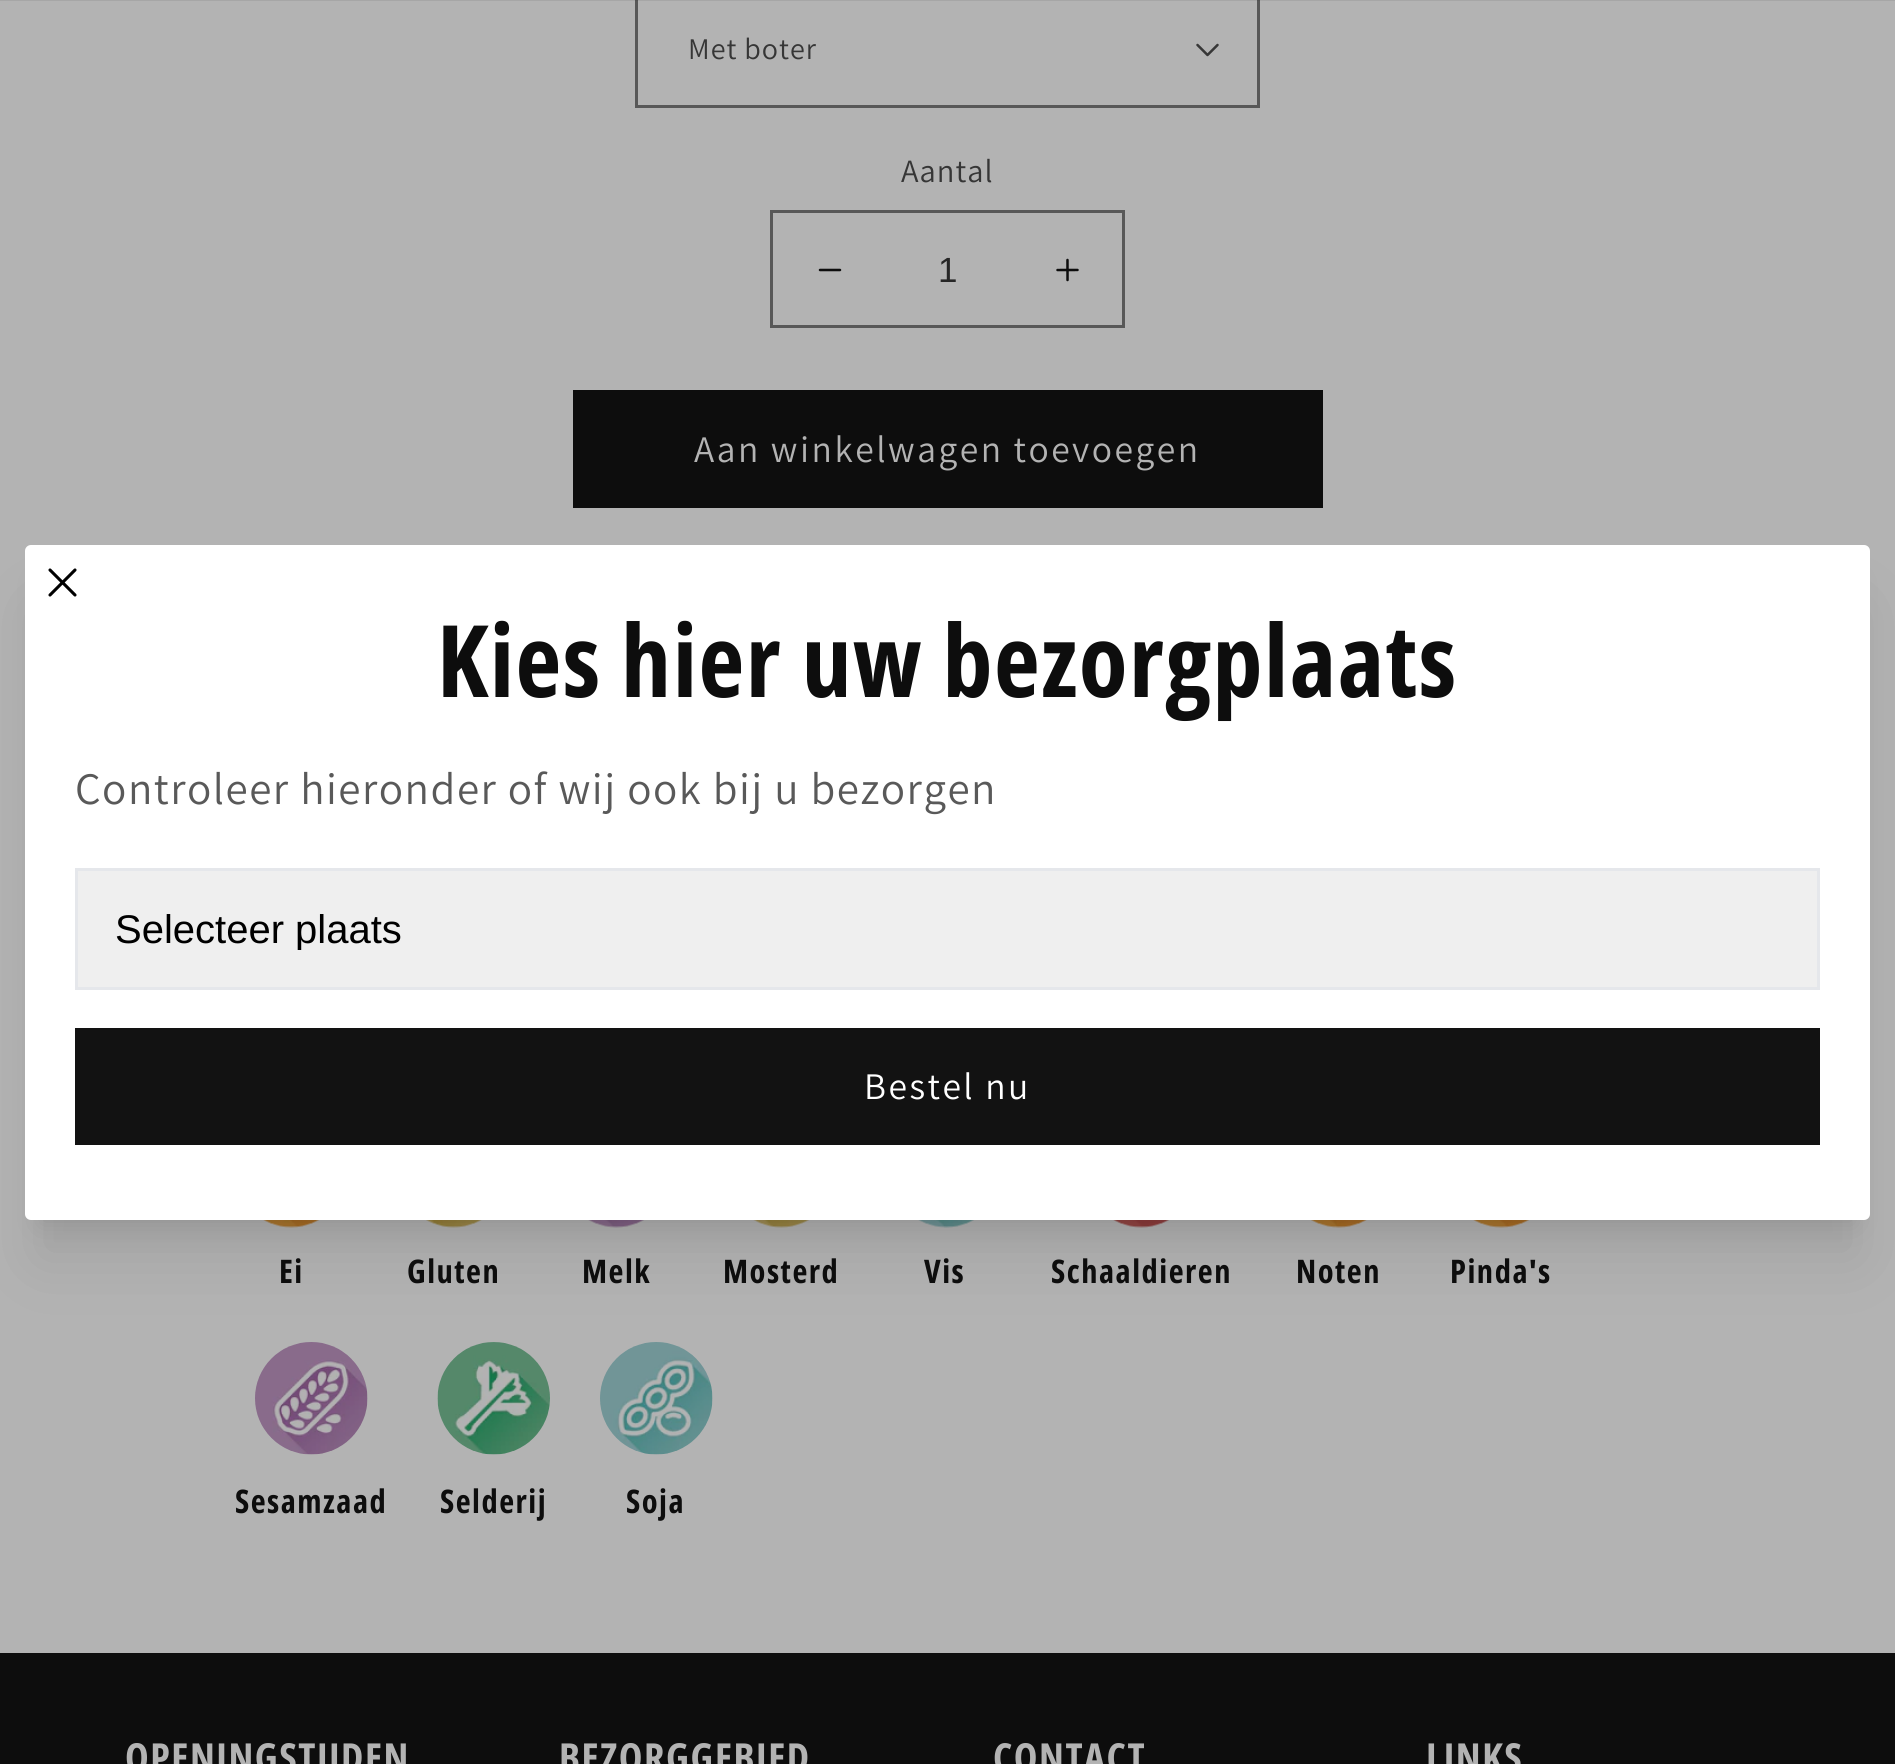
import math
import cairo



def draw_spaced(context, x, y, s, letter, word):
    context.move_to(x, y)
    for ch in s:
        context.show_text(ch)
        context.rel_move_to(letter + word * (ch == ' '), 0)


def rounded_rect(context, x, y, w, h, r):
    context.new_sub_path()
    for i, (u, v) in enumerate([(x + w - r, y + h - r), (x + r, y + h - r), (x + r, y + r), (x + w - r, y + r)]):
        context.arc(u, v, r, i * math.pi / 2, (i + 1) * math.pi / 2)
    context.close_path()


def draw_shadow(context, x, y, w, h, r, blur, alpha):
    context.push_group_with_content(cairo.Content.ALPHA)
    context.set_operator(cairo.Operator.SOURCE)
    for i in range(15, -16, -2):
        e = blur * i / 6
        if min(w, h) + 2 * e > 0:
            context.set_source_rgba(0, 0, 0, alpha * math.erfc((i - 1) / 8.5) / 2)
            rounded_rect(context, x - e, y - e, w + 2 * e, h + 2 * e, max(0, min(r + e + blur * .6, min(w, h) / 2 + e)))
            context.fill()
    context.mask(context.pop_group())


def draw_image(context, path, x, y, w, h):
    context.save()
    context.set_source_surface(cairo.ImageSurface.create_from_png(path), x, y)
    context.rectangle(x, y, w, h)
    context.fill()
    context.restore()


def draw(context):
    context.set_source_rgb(179 / 255, 179 / 255, 179 / 255)
    context.paint()
    draw_image(context, "images/1.png", 1196, 43, 23, 14)
    context.rectangle(636.5, -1.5, 622, 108)
    context.set_source_rgb(88 / 255, 88 / 255, 88 / 255)
    context.set_line_width(3)
    context.stroke()
    context.set_source_rgba(13 / 255, 13 / 255, 13 / 255, 0.08)
    context.rectangle(0, 0, 1895, 1)
    context.fill()
    draw_image(context, "images/2.png", 818, 268, 24, 4)
    draw_image(context, "images/3.png", 1056, 258, 23, 24)
    context.rectangle(771.5, 211.5, 352, 115)
    context.set_source_rgb(88 / 255, 88 / 255, 88 / 255)
    context.stroke()
    context.set_source_rgb(13 / 255, 13 / 255, 13 / 255)
    context.rectangle(573, 390, 750, 118)
    context.fill()
    draw_image(context, "images/4.png", 263, 1220, 56, 8)
    draw_image(context, "images/5.png", 426, 1220, 56, 8)
    draw_image(context, "images/6.png", 588, 1220, 56, 8)
    draw_image(context, "images/7.png", 753, 1220, 56, 8)
    draw_image(context, "images/8.png", 918, 1220, 56, 8)
    draw_image(context, "images/9.png", 1113, 1220, 56, 8)
    draw_image(context, "images/10.png", 1311, 1220, 56, 8)
    draw_image(context, "images/11.png", 1473, 1220, 56, 8)
    draw_image(context, "images/12.png", 255, 1342, 113, 113)
    draw_image(context, "images/13.png", 437, 1342, 113, 113)
    draw_image(context, "images/14.png", 600, 1342, 113, 113)
    context.set_source_rgb(0, 0, 0)
    draw_shadow(context, 40, 580, 1815, 645, 0, 12.5, 0.1)
    draw_shadow(context, 38, 608, 1820, 650, 0, 31, 0.1)
    context.set_source_rgb(1, 1, 1)
    rounded_rect(context, 25, 545, 1845, 675, 6)
    context.fill()
    context.new_path()
    context.move_to(50, 595)
    context.line_to(75, 570)
    context.move_to(50, 570)
    context.line_to(75, 595)
    context.set_source_rgb(0, 0, 0)
    context.set_line_width(3.1)
    context.set_line_cap(cairo.LineCap.ROUND)
    context.set_line_join(cairo.LineJoin.ROUND)
    context.stroke()
    context.set_source_rgb(239 / 255, 239 / 255, 239 / 255)
    context.rectangle(76.5, 869.5, 1742, 119)
    context.fill_preserve()
    context.set_source_rgb(229 / 255, 231 / 255, 235 / 255)
    context.set_line_width(3)
    context.set_line_cap(cairo.LineCap.BUTT)
    context.set_line_join(cairo.LineJoin.MITER)
    context.stroke()
    context.set_source_rgb(18 / 255, 18 / 255, 18 / 255)
    context.rectangle(75, 1028, 1745, 117)
    context.fill()
    context.set_source_rgb(13 / 255, 13 / 255, 13 / 255)
    context.rectangle(0, 1653, 1895, 111)
    context.fill()
    context.select_font_face("Assistant")
    context.set_font_size(30)
    context.set_source_rgb(54 / 255, 54 / 255, 54 / 255)
    draw_spaced(context, 688, 59, "Met boter", 1, 0)
    context.set_font_size(32.5)
    draw_spaced(context, 901, 182, "Aantal", 1, 0)
    context.select_font_face("Liberation Sans")
    context.set_font_size(35)
    context.set_source_rgb(38 / 255, 38 / 255, 38 / 255)
    context.move_to(938, 282)
    context.show_text("1")
    context.select_font_face("Assistant")
    context.set_font_size(37.5)
    context.set_source_rgb(179 / 255, 179 / 255, 179 / 255)
    draw_spaced(context, 694, 462, "Aan winkelwagen toevoegen", 2.5, 0)
    context.select_font_face("Open Sans Condensed", cairo.FontSlant.NORMAL, cairo.FontWeight.BOLD)
    context.set_font_size(32.5)
    context.set_source_rgb(13 / 255, 13 / 255, 13 / 255)
    draw_spaced(context, 279, 1283, "Ei", 1.5, 0)
    draw_spaced(context, 407, 1283, "Gluten", 1.5, 0)
    draw_spaced(context, 582, 1283, "Melk", 1.5, 0)
    draw_spaced(context, 723, 1283, "Mosterd", 1.5, 0)
    draw_spaced(context, 924, 1283, "Vis", 1.5, 0)
    draw_spaced(context, 1051, 1283, "Schaaldieren", 1.5, 0)
    draw_spaced(context, 1296, 1283, "Noten", 1.5, 0)
    draw_spaced(context, 1450, 1283, "Pinda's", 1.5, 0)
    draw_spaced(context, 235, 1513, "Sesamzaad", 1.5, 0)
    draw_spaced(context, 440, 1513, "Selderij", 1.5, 0)
    draw_spaced(context, 626, 1513, "Soja", 1.5, 0)
    context.set_font_size(100)
    draw_spaced(context, 437, 697, "Kies hier uw bezorgplaats", 1.5, 0)
    context.select_font_face("Assistant")
    context.set_font_size(45)
    context.set_source_rgb(89 / 255, 89 / 255, 89 / 255)
    draw_spaced(context, 75, 804, "Controleer hieronder of wij ook bij u bezorgen", 1.5, 0)
    context.save()
    context.rectangle(115, 908, 1665, 42)
    context.clip()
    context.select_font_face("Liberation Sans")
    context.set_font_size(40)
    context.set_source_rgb(0, 0, 0)
    context.move_to(115, 943)
    context.show_text("Selecteer plaats")
    context.restore()
    context.set_font_size(37.5)
    context.set_source_rgb(1, 1, 1)
    draw_spaced(context, 864, 1099, "Bestel nu", 2.5, 0)
    context.select_font_face("Open Sans Condensed", cairo.FontSlant.NORMAL, cairo.FontWeight.BOLD)
    context.set_font_size(40)
    context.set_source_rgb(179 / 255, 179 / 255, 179 / 255)
    draw_spaced(context, 125, 1772, "OPENINGSTIJDEN", 1.5, 0)
    draw_spaced(context, 559, 1772, "BEZORGGEBIED", 1.5, 0)
    draw_spaced(context, 993, 1772, "CONTACT", 1.5, 0)
    draw_spaced(context, 1426, 1772, "LINKS", 1.5, 0)


surface = cairo.ImageSurface(cairo.Format.RGB24, 1895, 1764)
context = cairo.Context(surface)
options = cairo.FontOptions()
options.set_hint_metrics(cairo.HintMetrics.OFF)
options.set_hint_style(cairo.HintStyle.NONE)
context.set_font_options(options)
context.set_miter_limit(4)
draw(context)
surface.write_to_png("out.png")
